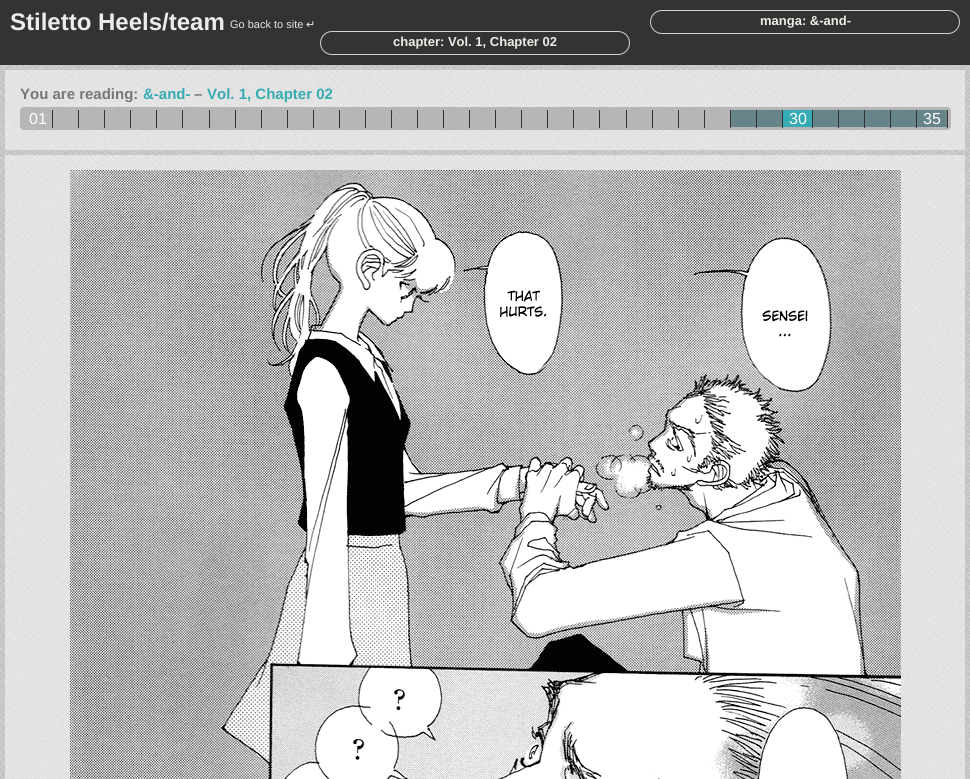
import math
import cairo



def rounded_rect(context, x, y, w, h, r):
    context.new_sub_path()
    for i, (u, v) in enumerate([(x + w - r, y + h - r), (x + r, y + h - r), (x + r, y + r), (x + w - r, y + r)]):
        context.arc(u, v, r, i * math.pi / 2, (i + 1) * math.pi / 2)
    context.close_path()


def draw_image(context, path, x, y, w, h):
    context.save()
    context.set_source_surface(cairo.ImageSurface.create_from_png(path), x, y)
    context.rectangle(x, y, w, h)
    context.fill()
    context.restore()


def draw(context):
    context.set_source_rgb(1, 1, 1)
    context.paint()
    draw_image(context, "images/1.png", 0, 65, 970, 714)
    context.set_source_rgb(51 / 255, 51 / 255, 51 / 255)
    context.rectangle(0, 0, 970, 65)
    context.fill()
    rounded_rect(context, 650.5, 10.5, 309, 23, 11.5)
    context.set_source_rgb(209 / 255, 209 / 255, 209 / 255)
    context.set_line_width(1)
    context.stroke()
    rounded_rect(context, 320.5, 31.5, 309, 23, 11.5)
    context.stroke()
    context.set_source_rgba(1, 1, 1, 0.5)
    context.rectangle(5, 70, 960, 80)
    context.fill()
    context.set_source_rgba(0, 0, 0, 0.2)
    rounded_rect(context, 20, 107, 931, 23, 4)
    context.fill()
    context.set_source_rgb(51 / 255, 51 / 255, 51 / 255)
    context.rectangle(52, 110, 1, 18)
    context.fill()
    context.rectangle(78, 110, 1, 18)
    context.fill()
    context.rectangle(104, 110, 1, 18)
    context.fill()
    context.rectangle(130, 110, 1, 18)
    context.fill()
    context.rectangle(156, 110, 1, 18)
    context.fill()
    context.rectangle(182, 110, 1, 18)
    context.fill()
    context.rectangle(209, 110, 1, 18)
    context.fill()
    context.rectangle(235, 110, 1, 18)
    context.fill()
    context.rectangle(261, 110, 1, 18)
    context.fill()
    context.rectangle(287, 110, 1, 18)
    context.fill()
    context.rectangle(313, 110, 1, 18)
    context.fill()
    context.rectangle(339, 110, 1, 18)
    context.fill()
    context.rectangle(365, 110, 1, 18)
    context.fill()
    context.rectangle(391, 110, 1, 18)
    context.fill()
    context.rectangle(417, 110, 1, 18)
    context.fill()
    context.rectangle(443, 110, 1, 18)
    context.fill()
    context.rectangle(469, 110, 1, 18)
    context.fill()
    context.rectangle(495, 110, 1, 18)
    context.fill()
    context.rectangle(521, 110, 1, 18)
    context.fill()
    context.rectangle(547, 110, 1, 18)
    context.fill()
    context.rectangle(573, 110, 1, 18)
    context.fill()
    context.rectangle(599, 110, 1, 18)
    context.fill()
    context.rectangle(626, 110, 1, 18)
    context.fill()
    context.rectangle(652, 110, 1, 18)
    context.fill()
    context.rectangle(678, 110, 1, 18)
    context.fill()
    context.rectangle(704, 110, 1, 18)
    context.fill()
    context.rectangle(730, 110, 1, 18)
    context.fill()
    context.set_source_rgb(103 / 255, 132 / 255, 138 / 255)
    context.rectangle(731, 110, 25, 17)
    context.fill()
    context.set_source_rgb(51 / 255, 51 / 255, 51 / 255)
    context.rectangle(756, 110, 1, 18)
    context.fill()
    context.set_source_rgb(103 / 255, 132 / 255, 138 / 255)
    context.rectangle(757, 110, 25, 17)
    context.fill()
    context.set_source_rgb(51 / 255, 51 / 255, 51 / 255)
    context.rectangle(782, 110, 1, 18)
    context.fill()
    context.set_source_rgb(55 / 255, 171 / 255, 179 / 255)
    context.rectangle(783, 110, 29, 17)
    context.fill()
    context.set_source_rgb(51 / 255, 51 / 255, 51 / 255)
    context.rectangle(812, 110, 1, 18)
    context.fill()
    context.set_source_rgb(103 / 255, 132 / 255, 138 / 255)
    context.rectangle(813, 110, 25, 17)
    context.fill()
    context.set_source_rgb(51 / 255, 51 / 255, 51 / 255)
    context.rectangle(838, 110, 1, 18)
    context.fill()
    context.set_source_rgb(103 / 255, 132 / 255, 138 / 255)
    context.rectangle(839, 110, 25, 17)
    context.fill()
    context.set_source_rgb(51 / 255, 51 / 255, 51 / 255)
    context.rectangle(864, 110, 1, 18)
    context.fill()
    context.set_source_rgb(103 / 255, 132 / 255, 138 / 255)
    context.rectangle(865, 110, 25, 17)
    context.fill()
    context.set_source_rgb(51 / 255, 51 / 255, 51 / 255)
    context.rectangle(890, 110, 1, 18)
    context.fill()
    context.set_source_rgb(103 / 255, 132 / 255, 138 / 255)
    context.rectangle(891, 110, 25, 17)
    context.fill()
    context.set_source_rgb(51 / 255, 51 / 255, 51 / 255)
    context.rectangle(916, 110, 1, 18)
    context.fill()
    context.set_source_rgb(103 / 255, 132 / 255, 138 / 255)
    context.rectangle(917, 110, 30, 17)
    context.fill()
    context.set_source_rgb(51 / 255, 51 / 255, 51 / 255)
    context.rectangle(947, 110, 1, 18)
    context.fill()
    context.set_source_rgba(1, 1, 1, 0.5)
    context.rectangle(5, 155, 960, 624)
    context.fill()
    draw_image(context, "images/2.png", 70, 170, 831, 609)
    context.select_font_face("Liberation Sans", cairo.FontSlant.NORMAL, cairo.FontWeight.BOLD)
    context.set_font_size(24)
    context.set_source_rgb(236 / 255, 236 / 255, 236 / 255)
    context.move_to(10, 30)
    context.show_text("Stiletto Heels/team")
    context.select_font_face("Liberation Sans")
    context.set_font_size(11)
    context.set_source_rgb(230 / 255, 230 / 255, 225 / 255)
    context.move_to(230, 28)
    context.show_text("Go back to site")
    context.select_font_face("DejaVu Sans")
    context.move_to(306, 28)
    context.show_text("↵")
    context.select_font_face("Liberation Sans", cairo.FontSlant.NORMAL, cairo.FontWeight.BOLD)
    context.set_font_size(13)
    context.set_source_rgb(236 / 255, 236 / 255, 230 / 255)
    context.move_to(760, 25)
    context.show_text("manga: &-and-")
    context.move_to(393, 46)
    context.show_text("chapter: Vol. 1, Chapter 02")
    context.set_font_size(15)
    context.set_source_rgb(119 / 255, 119 / 255, 119 / 255)
    context.move_to(20, 99)
    context.show_text("You are reading:")
    context.set_source_rgb(55 / 255, 171 / 255, 179 / 255)
    context.move_to(143, 99)
    context.show_text("&-and-")
    context.set_source_rgb(119 / 255, 119 / 255, 119 / 255)
    context.move_to(194, 99)
    context.show_text("–")
    context.set_source_rgb(55 / 255, 171 / 255, 179 / 255)
    context.move_to(207, 99)
    context.show_text("Vol. 1, Chapter 02")
    context.select_font_face("Liberation Sans")
    context.set_font_size(16)
    context.set_source_rgb(1, 1, 1)
    context.move_to(29, 124)
    context.show_text("01")
    context.move_to(789, 124)
    context.show_text("30")
    context.move_to(923, 124)
    context.show_text("35")


surface = cairo.ImageSurface(cairo.Format.RGB24, 970, 779)
context = cairo.Context(surface)
options = cairo.FontOptions()
options.set_hint_metrics(cairo.HintMetrics.OFF)
options.set_hint_style(cairo.HintStyle.NONE)
context.set_font_options(options)
context.set_miter_limit(4)
draw(context)
surface.write_to_png("out.png")
